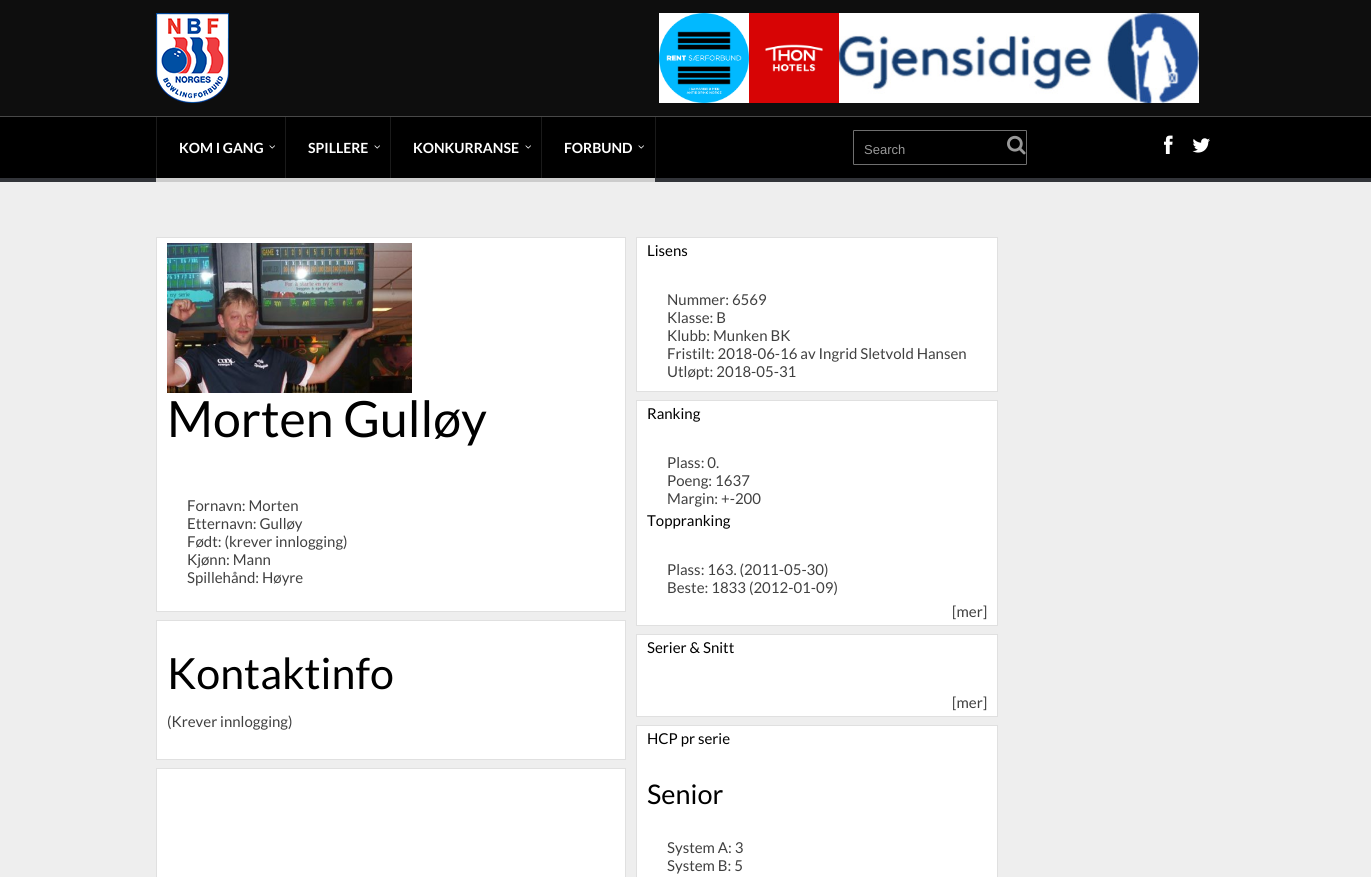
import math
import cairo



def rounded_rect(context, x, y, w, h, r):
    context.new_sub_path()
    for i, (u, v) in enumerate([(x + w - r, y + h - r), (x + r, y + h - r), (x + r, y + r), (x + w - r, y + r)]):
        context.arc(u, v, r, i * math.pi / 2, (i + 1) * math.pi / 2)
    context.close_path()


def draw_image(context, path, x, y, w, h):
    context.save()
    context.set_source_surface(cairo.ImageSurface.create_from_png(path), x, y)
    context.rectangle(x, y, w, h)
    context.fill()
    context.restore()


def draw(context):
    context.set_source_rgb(238 / 255, 238 / 255, 238 / 255)
    context.paint()
    context.set_source_rgb(14 / 255, 14 / 255, 14 / 255)
    context.rectangle(0, 0, 1371, 116)
    context.fill()
    draw_image(context, "images/1.png", 156, 13, 73, 90)
    draw_image(context, "images/2.png", 659, 13, 90, 90)
    draw_image(context, "images/3.png", 749, 13, 90, 90)
    draw_image(context, "images/4.png", 839, 13, 360, 90)
    context.set_source_rgb(0, 0, 0)
    context.rectangle(0, 117, 1371, 61)
    context.fill()
    context.set_source_rgb(72 / 255, 72 / 255, 72 / 255)
    context.rectangle(0, 116, 1371, 1)
    context.fill()
    context.set_source_rgb(50 / 255, 52 / 255, 57 / 255)
    context.rectangle(0, 178, 1371, 4)
    context.fill()
    context.set_source_rgb(26 / 255, 26 / 255, 26 / 255)
    context.rectangle(285, 117, 1, 61)
    context.fill()
    context.rectangle(156, 117, 1, 61)
    context.fill()
    draw_image(context, "images/5.png", 269, 145, 6, 4)
    context.set_source_rgb(204 / 255, 204 / 255, 204 / 255)
    context.rectangle(156, 178, 499, 4)
    context.fill()
    context.set_source_rgb(26 / 255, 26 / 255, 26 / 255)
    context.rectangle(390, 117, 1, 61)
    context.fill()
    draw_image(context, "images/5.png", 374, 145, 6, 4)
    context.rectangle(541, 117, 1, 61)
    context.fill()
    draw_image(context, "images/5.png", 525, 145, 6, 4)
    context.rectangle(655, 117, 1, 61)
    context.fill()
    draw_image(context, "images/5.png", 638, 145, 6, 4)
    rounded_rect(context, 853.5, 130.5, 173, 34, 0.5)
    context.set_source_rgb(111 / 255, 111 / 255, 111 / 255)
    context.set_line_width(1)
    context.stroke()
    draw_image(context, "images/6.png", 1007, 135, 19, 20)
    draw_image(context, "images/7.png", 1164, 135, 9, 19)
    draw_image(context, "images/8.png", 1192, 138, 18, 15)
    context.set_source_rgb(1, 1, 1)
    context.rectangle(156.5, 237.5, 469, 374)
    context.fill_preserve()
    context.set_source_rgb(224 / 255, 224 / 255, 224 / 255)
    context.stroke()
    draw_image(context, "images/9.png", 167, 243, 245, 150)
    context.set_source_rgb(1, 1, 1)
    context.rectangle(156.5, 620.5, 469, 139)
    context.fill_preserve()
    context.set_source_rgb(224 / 255, 224 / 255, 224 / 255)
    context.stroke()
    context.set_source_rgb(1, 1, 1)
    context.rectangle(156.5, 768.5, 469, 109)
    context.fill_preserve()
    context.set_source_rgb(224 / 255, 224 / 255, 224 / 255)
    context.stroke()
    context.set_source_rgb(1, 1, 1)
    context.rectangle(636.5, 237.5, 361, 154)
    context.fill_preserve()
    context.set_source_rgb(224 / 255, 224 / 255, 224 / 255)
    context.stroke()
    context.set_source_rgb(1, 1, 1)
    context.rectangle(636.5, 400.5, 361, 225)
    context.fill_preserve()
    context.set_source_rgb(224 / 255, 224 / 255, 224 / 255)
    context.stroke()
    context.set_source_rgb(1, 1, 1)
    context.rectangle(636.5, 634.5, 361, 82)
    context.fill_preserve()
    context.set_source_rgb(224 / 255, 224 / 255, 224 / 255)
    context.stroke()
    context.set_source_rgb(1, 1, 1)
    context.rectangle(636.5, 725.5, 361, 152)
    context.fill_preserve()
    context.set_source_rgb(224 / 255, 224 / 255, 224 / 255)
    context.stroke()
    context.select_font_face("Lato", cairo.FontSlant.NORMAL, cairo.FontWeight.BOLD)
    context.set_font_size(14)
    context.set_source_rgb(1, 1, 1)
    context.move_to(179, 153)
    context.show_text("KOM I GANG")
    context.move_to(308, 153)
    context.show_text("SPILLERE")
    context.move_to(413, 153)
    context.show_text("KONKURRANSE")
    context.move_to(564, 153)
    context.show_text("FORBUND")
    context.select_font_face("Liberation Sans")
    context.set_font_size(13)
    context.set_source_rgb(153 / 255, 153 / 255, 153 / 255)
    context.move_to(864, 154)
    context.show_text("Search")
    context.select_font_face("Lato")
    context.set_font_size(50)
    context.set_source_rgb(0, 0, 0)
    context.move_to(167, 437)
    context.show_text("Morten Gulløy")
    context.set_font_size(15)
    context.set_source_rgb(64 / 255, 64 / 255, 64 / 255)
    context.move_to(187, 511)
    context.show_text("Fornavn: Morten")
    context.move_to(187, 529)
    context.show_text("Etternavn: Gulløy")
    context.move_to(187, 547)
    context.show_text("Født: (krever innlogging)")
    context.move_to(187, 565)
    context.show_text("Kjønn: Mann")
    context.move_to(187, 583)
    context.show_text("Spillehånd: Høyre")
    context.set_font_size(43)
    context.set_source_rgb(0, 0, 0)
    context.move_to(167, 689)
    context.show_text("Kontaktinfo")
    context.set_font_size(15)
    context.set_source_rgb(64 / 255, 64 / 255, 64 / 255)
    context.move_to(167, 727)
    context.show_text("(Krever innlogging)")
    context.set_source_rgb(0, 0, 0)
    context.move_to(647, 256)
    context.show_text("Lisens")
    context.set_source_rgb(64 / 255, 64 / 255, 64 / 255)
    context.move_to(667, 305)
    context.show_text("Nummer: 6569")
    context.move_to(667, 323)
    context.show_text("Klasse: B")
    context.move_to(667, 341)
    context.show_text("Klubb:")
    context.move_to(713, 341)
    context.show_text("Munken BK")
    context.move_to(667, 359)
    context.show_text("Fristilt: 2018-06-16 av Ingrid Sletvold Hansen")
    context.move_to(667, 377)
    context.show_text("Utløpt: 2018-05-31")
    context.set_source_rgb(0, 0, 0)
    context.move_to(647, 419)
    context.show_text("Ranking")
    context.set_source_rgb(64 / 255, 64 / 255, 64 / 255)
    context.move_to(667, 468)
    context.show_text("Plass: 0.")
    context.move_to(667, 486)
    context.show_text("Poeng: 1637")
    context.move_to(667, 504)
    context.show_text("Margin: +-200")
    context.set_source_rgb(0, 0, 0)
    context.move_to(647, 526)
    context.show_text("Toppranking")
    context.set_source_rgb(64 / 255, 64 / 255, 64 / 255)
    context.move_to(667, 575)
    context.show_text("Plass: 163. (2011-05-30)")
    context.move_to(667, 593)
    context.show_text("Beste: 1833 (2012-01-09)")
    context.move_to(952, 617)
    context.show_text("[mer]")
    context.set_source_rgb(0, 0, 0)
    context.move_to(647, 653)
    context.show_text("Serier & Snitt")
    context.set_source_rgb(64 / 255, 64 / 255, 64 / 255)
    context.move_to(952, 708)
    context.show_text("[mer]")
    context.set_source_rgb(0, 0, 0)
    context.move_to(647, 744)
    context.show_text("HCP pr serie")
    context.set_font_size(27)
    context.move_to(647, 804)
    context.show_text("Senior")
    context.set_font_size(15)
    context.set_source_rgb(64 / 255, 64 / 255, 64 / 255)
    context.move_to(667, 853)
    context.show_text("System A: 3")
    context.move_to(667, 871)
    context.show_text("System B: 5")


surface = cairo.ImageSurface(cairo.Format.RGB24, 1371, 877)
context = cairo.Context(surface)
options = cairo.FontOptions()
options.set_hint_metrics(cairo.HintMetrics.OFF)
options.set_hint_style(cairo.HintStyle.NONE)
context.set_font_options(options)
context.set_miter_limit(4)
draw(context)
surface.write_to_png("out.png")
